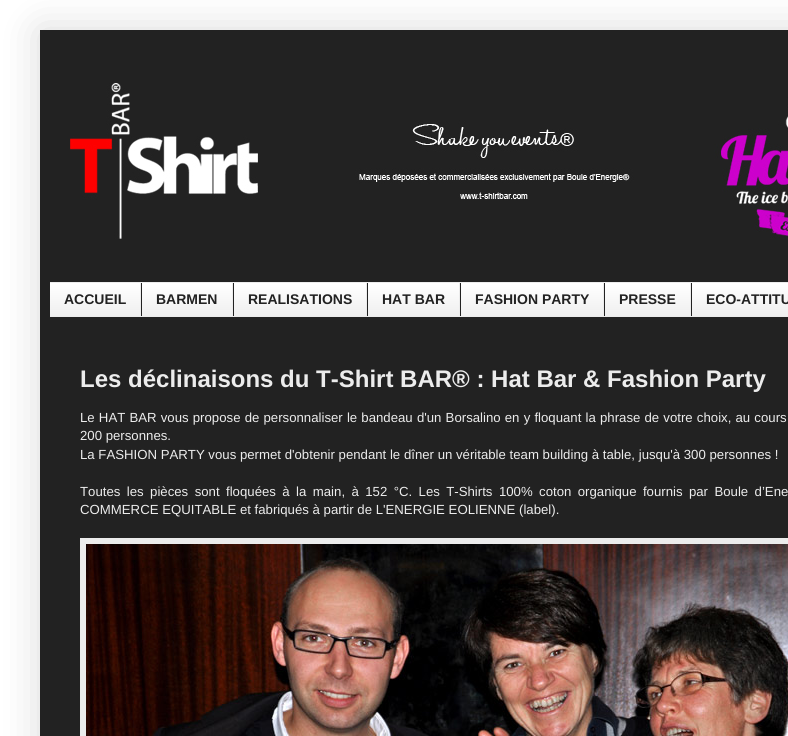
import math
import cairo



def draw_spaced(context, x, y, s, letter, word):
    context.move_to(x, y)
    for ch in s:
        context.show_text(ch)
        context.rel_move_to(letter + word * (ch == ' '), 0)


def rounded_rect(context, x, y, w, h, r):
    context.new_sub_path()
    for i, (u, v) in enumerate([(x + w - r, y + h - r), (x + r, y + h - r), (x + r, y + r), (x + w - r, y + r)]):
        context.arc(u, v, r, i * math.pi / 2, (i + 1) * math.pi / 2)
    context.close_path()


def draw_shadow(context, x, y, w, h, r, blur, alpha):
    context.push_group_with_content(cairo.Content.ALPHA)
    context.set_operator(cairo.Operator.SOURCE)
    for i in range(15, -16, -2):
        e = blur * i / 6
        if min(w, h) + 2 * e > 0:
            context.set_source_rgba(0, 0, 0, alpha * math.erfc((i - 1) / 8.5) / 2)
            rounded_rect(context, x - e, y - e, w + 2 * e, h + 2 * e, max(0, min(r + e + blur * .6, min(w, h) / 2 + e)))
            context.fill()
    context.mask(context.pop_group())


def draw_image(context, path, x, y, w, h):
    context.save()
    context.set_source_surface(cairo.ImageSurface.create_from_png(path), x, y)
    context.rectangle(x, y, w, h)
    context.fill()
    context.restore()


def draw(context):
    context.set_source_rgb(1, 1, 1)
    context.paint()
    context.set_source_rgb(0, 0, 0)
    draw_shadow(context, 40, 30, 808, 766, 0, 20, 0.15)
    context.set_source_rgb(34 / 255, 34 / 255, 34 / 255)
    context.rectangle(40, 30, 748, 706)
    context.fill()
    draw_image(context, "images/1.png", 70, 83, 718, 156)
    context.set_source_rgb(236 / 255, 236 / 255, 236 / 255)
    context.rectangle(50, 284, 738, 33)
    context.fill()
    draw_image(context, "images/2.png", 50, 283, 738, 33)
    context.rectangle(50, 282, 738, 1)
    context.fill()
    context.rectangle(140, 283, 1, 33)
    context.fill()
    context.rectangle(232, 283, 1, 33)
    context.fill()
    context.set_source_rgb(34 / 255, 34 / 255, 34 / 255)
    context.rectangle(141, 283, 1, 33)
    context.fill()
    context.set_source_rgb(236 / 255, 236 / 255, 236 / 255)
    context.rectangle(366, 283, 1, 33)
    context.fill()
    context.set_source_rgb(34 / 255, 34 / 255, 34 / 255)
    context.rectangle(233, 283, 1, 33)
    context.fill()
    context.set_source_rgb(236 / 255, 236 / 255, 236 / 255)
    context.rectangle(459, 283, 1, 33)
    context.fill()
    context.set_source_rgb(34 / 255, 34 / 255, 34 / 255)
    context.rectangle(367, 283, 1, 33)
    context.fill()
    context.set_source_rgb(236 / 255, 236 / 255, 236 / 255)
    context.rectangle(603, 283, 1, 33)
    context.fill()
    context.set_source_rgb(34 / 255, 34 / 255, 34 / 255)
    context.rectangle(460, 283, 1, 33)
    context.fill()
    context.set_source_rgb(236 / 255, 236 / 255, 236 / 255)
    context.rectangle(690, 283, 1, 33)
    context.fill()
    context.set_source_rgb(34 / 255, 34 / 255, 34 / 255)
    context.rectangle(604, 283, 1, 33)
    context.fill()
    context.rectangle(691, 283, 1, 33)
    context.fill()
    context.set_source_rgb(236 / 255, 236 / 255, 236 / 255)
    context.rectangle(80, 538, 708, 198)
    context.fill()
    draw_image(context, "images/3.png", 86, 544, 702, 192)
    context.select_font_face("Liberation Sans", cairo.FontSlant.NORMAL, cairo.FontWeight.BOLD)
    context.set_font_size(14)
    context.set_source_rgb(34 / 255, 34 / 255, 34 / 255)
    context.move_to(64, 304)
    context.show_text("ACCUEIL")
    context.move_to(156, 304)
    context.show_text("BARMEN")
    context.move_to(248, 304)
    context.show_text("REALISATIONS")
    context.move_to(382, 304)
    context.show_text("HAT BAR")
    context.move_to(475, 304)
    context.show_text("FASHION PARTY")
    context.move_to(619, 304)
    context.show_text("PRESSE")
    context.move_to(706, 304)
    context.show_text("ECO-ATTITU")
    context.set_font_size(24)
    context.set_source_rgb(236 / 255, 236 / 255, 236 / 255)
    context.move_to(80, 387)
    context.show_text("Les déclinaisons du T-Shirt BAR® : Hat Bar & Fashion Party")
    context.select_font_face("Liberation Sans")
    context.set_font_size(13.2)
    draw_spaced(context, 80, 422, "Le HAT BAR vous propose de personnaliser le bandeau d'un Borsalino en y floquant la phrase de votre choix, au cours", 0, 0.5)
    context.move_to(80, 440)
    context.show_text("200 personnes.")
    context.move_to(80, 459)
    context.show_text("La FASHION PARTY vous permet d'obtenir pendant le dîner un véritable team building à table, jusqu'à 300 personnes !")
    draw_spaced(context, 80, 496, "Toutes les pièces sont floquées à la main, à 152 °C. Les T-Shirts 100% coton organique fournis par Boule d’Ene", 0, 2.75)
    context.move_to(80, 514)
    context.show_text("COMMERCE EQUITABLE et fabriqués à partir de L'ENERGIE EOLIENNE (label).")


surface = cairo.ImageSurface(cairo.Format.RGB24, 788, 736)
context = cairo.Context(surface)
options = cairo.FontOptions()
options.set_hint_metrics(cairo.HintMetrics.OFF)
options.set_hint_style(cairo.HintStyle.NONE)
context.set_font_options(options)
context.set_miter_limit(4)
draw(context)
surface.write_to_png("out.png")
